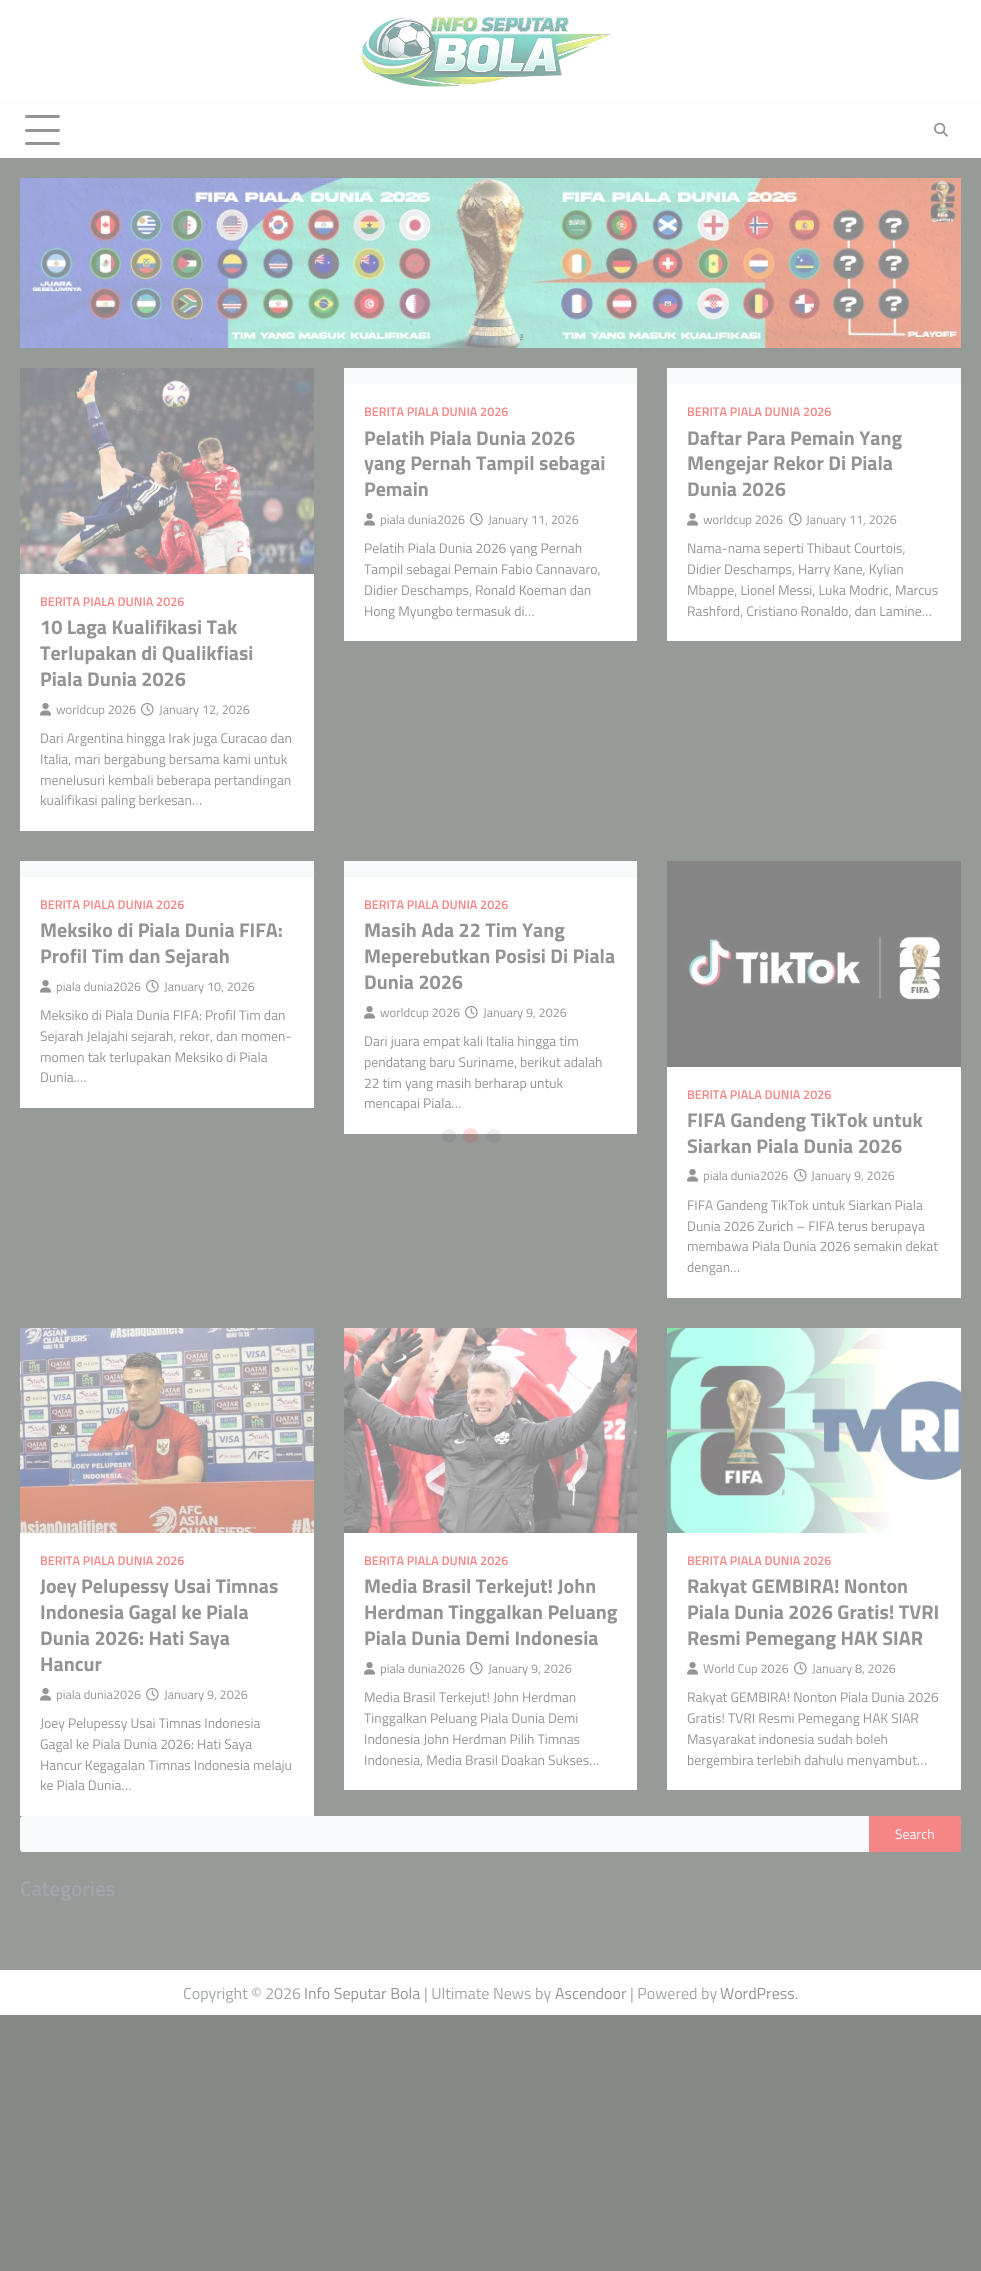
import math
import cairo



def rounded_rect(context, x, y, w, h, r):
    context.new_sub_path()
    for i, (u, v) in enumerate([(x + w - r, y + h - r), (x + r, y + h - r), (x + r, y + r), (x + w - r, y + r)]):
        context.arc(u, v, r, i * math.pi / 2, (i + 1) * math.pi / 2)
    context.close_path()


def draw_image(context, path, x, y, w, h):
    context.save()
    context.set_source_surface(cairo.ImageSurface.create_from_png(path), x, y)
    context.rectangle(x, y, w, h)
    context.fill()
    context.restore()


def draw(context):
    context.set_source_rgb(133 / 255, 137 / 255, 134 / 255)
    context.paint()
    context.set_source_rgb(151 / 255, 155 / 255, 152 / 255)
    context.rectangle(0, 158, 981, 1812)
    context.fill()
    context.set_source_rgb(1, 1, 1)
    context.rectangle(0, 0, 981, 102)
    context.fill()
    draw_image(context, "images/1.png", 361, 16, 250, 71)
    context.rectangle(0, 103, 981, 55)
    context.fill()
    context.set_source_rgb(248 / 255, 248 / 255, 248 / 255)
    context.rectangle(0, 102, 981, 1)
    context.fill()
    context.set_source_rgb(148 / 255, 148 / 255, 150 / 255)
    rounded_rect(context, 25, 115, 35, 3, 1.5)
    context.fill()
    rounded_rect(context, 25, 129, 35, 3, 1.5)
    context.fill()
    rounded_rect(context, 25, 142, 35, 3, 1.5)
    context.fill()
    draw_image(context, "images/2.png", 934, 122, 14, 15)
    draw_image(context, "images/3.png", 20, 178, 941, 170)
    context.set_source_rgb(1, 1, 1)
    context.rectangle(344, 384, 293, 257)
    context.fill()
    context.set_source_rgb(248 / 255, 249 / 255, 251 / 255)
    context.rectangle(344, 368, 293, 16)
    context.fill()
    draw_image(context, "images/4.png", 364, 512, 11, 14)
    draw_image(context, "images/5.png", 470, 512, 13, 14)
    context.set_source_rgb(1, 1, 1)
    context.rectangle(667, 384, 294, 257)
    context.fill()
    context.set_source_rgb(248 / 255, 249 / 255, 251 / 255)
    context.rectangle(667, 368, 294, 16)
    context.fill()
    draw_image(context, "images/4.png", 687, 512, 11, 14)
    draw_image(context, "images/5.png", 789, 512, 13, 14)
    context.set_source_rgb(1, 1, 1)
    context.rectangle(20, 574, 294, 257)
    context.fill()
    draw_image(context, "images/6.png", 20, 368, 294, 206)
    draw_image(context, "images/4.png", 40, 702, 11, 14)
    draw_image(context, "images/5.png", 141, 702, 13, 14)
    context.rectangle(20, 877, 294, 231)
    context.fill()
    context.set_source_rgb(248 / 255, 249 / 255, 251 / 255)
    context.rectangle(20, 861, 294, 16)
    context.fill()
    draw_image(context, "images/4.png", 40, 979, 11, 14)
    draw_image(context, "images/5.png", 146, 979, 13, 14)
    context.set_source_rgb(1, 1, 1)
    context.rectangle(344, 877, 293, 257)
    context.fill()
    context.set_source_rgb(248 / 255, 249 / 255, 251 / 255)
    context.rectangle(344, 861, 293, 16)
    context.fill()
    draw_image(context, "images/4.png", 364, 1005, 11, 14)
    draw_image(context, "images/5.png", 465, 1005, 13, 14)
    context.set_source_rgb(1, 1, 1)
    context.rectangle(667, 1067, 294, 231)
    context.fill()
    draw_image(context, "images/7.png", 667, 861, 294, 206)
    draw_image(context, "images/4.png", 687, 1168, 11, 14)
    draw_image(context, "images/5.png", 794, 1168, 13, 14)
    context.rectangle(20, 1533, 294, 283)
    context.fill()
    draw_image(context, "images/8.png", 20, 1328, 294, 205)
    draw_image(context, "images/4.png", 40, 1687, 11, 14)
    draw_image(context, "images/5.png", 146, 1687, 13, 14)
    context.rectangle(344, 1533, 293, 257)
    context.fill()
    draw_image(context, "images/9.png", 344, 1328, 293, 205)
    draw_image(context, "images/4.png", 364, 1661, 11, 14)
    draw_image(context, "images/5.png", 470, 1661, 13, 14)
    context.rectangle(667, 1533, 294, 257)
    context.fill()
    draw_image(context, "images/10.png", 667, 1328, 294, 205)
    draw_image(context, "images/4.png", 687, 1661, 11, 14)
    draw_image(context, "images/5.png", 794, 1661, 13, 14)
    context.set_source_rgb(248 / 255, 249 / 255, 251 / 255)
    context.new_path()
    context.move_to(23, 1816)
    context.line_to(869, 1816)
    context.line_to(869, 1852)
    context.line_to(23, 1852)
    context.curve_to(21.5, 1852, 20, 1850.5, 20, 1849)
    context.line_to(20, 1819)
    context.curve_to(20, 1817.5, 21.5, 1816, 23, 1816)
    context.close_path()
    context.fill()
    context.set_source_rgb(246 / 255, 133 / 255, 133 / 255)
    context.new_path()
    context.move_to(869.5, 1816.5)
    context.line_to(958, 1816.5)
    context.curve_to(959.5, 1816.5, 960.5, 1817.5, 960.5, 1819)
    context.line_to(960.5, 1849)
    context.curve_to(960.5, 1850.5, 959.5, 1851.5, 958, 1851.5)
    context.line_to(869.5, 1851.5)
    context.close_path()
    context.fill_preserve()
    context.set_line_width(1)
    context.stroke()
    gradient = cairo.RadialGradient(494, 1136, 0, 494, 1136, 7.5)
    gradient.add_color_stop_rgba(0.9, 32 / 255, 33 / 255, 36 / 255, 0.07)
    gradient.add_color_stop_rgba(1, 32 / 255, 33 / 255, 36 / 255, 0)
    context.set_source(gradient)
    context.rectangle(487, 1129, 14, 14)
    context.fill()
    gradient = cairo.RadialGradient(449, 1136, 0, 449, 1136, 7.5)
    gradient.add_color_stop_rgba(0.9, 32 / 255, 33 / 255, 36 / 255, 0.07)
    gradient.add_color_stop_rgba(1, 32 / 255, 33 / 255, 36 / 255, 0)
    context.set_source(gradient)
    context.rectangle(442, 1129, 14, 14)
    context.fill()
    context.set_source_rgba(236 / 255, 0, 0, 0.07)
    context.arc(470.5, 1135.5, 7.5, 0, 2 * math.pi)
    context.fill()
    context.arc(470.5, 1135.5, 7.5, 0, 2 * math.pi)
    context.fill()
    context.set_source_rgb(1, 1, 1)
    context.rectangle(0, 1971, 981, 44)
    context.fill()
    context.set_source_rgb(248 / 255, 248 / 255, 248 / 255)
    context.rectangle(0, 1970, 981, 1)
    context.fill()
    context.select_font_face("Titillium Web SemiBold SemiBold")
    context.set_font_size(12.6)
    context.set_source_rgb(246 / 255, 133 / 255, 133 / 255)
    context.move_to(364, 416)
    context.show_text("BERITA PIALA DUNIA 2026")
    context.select_font_face("Titillium Web", cairo.FontSlant.NORMAL, cairo.FontWeight.BOLD)
    context.set_font_size(19.9)
    context.set_source_rgb(148 / 255, 148 / 255, 150 / 255)
    context.move_to(364, 445)
    context.show_text("Pelatih Piala Dunia 2026")
    context.move_to(364, 470)
    context.show_text("yang Pernah Tampil sebagai")
    context.move_to(364, 496)
    context.show_text("Pemain")
    context.select_font_face("Titillium Web")
    context.set_font_size(12.6)
    context.move_to(380, 524)
    context.show_text("piala dunia2026")
    context.move_to(488, 524)
    context.show_text("January 11, 2026")
    context.set_font_size(13.8)
    context.move_to(364, 553)
    context.show_text("Pelatih Piala Dunia 2026 yang Pernah")
    context.move_to(364, 574)
    context.show_text("Tampil sebagai Pemain Fabio Cannavaro,")
    context.move_to(364, 595)
    context.show_text("Didier Deschamps, Ronald Koeman dan")
    context.move_to(364, 616)
    context.show_text("Hong Myungbo termasuk di…")
    context.select_font_face("Titillium Web SemiBold SemiBold")
    context.set_font_size(12.6)
    context.set_source_rgb(246 / 255, 133 / 255, 133 / 255)
    context.move_to(687, 416)
    context.show_text("BERITA PIALA DUNIA 2026")
    context.select_font_face("Titillium Web", cairo.FontSlant.NORMAL, cairo.FontWeight.BOLD)
    context.set_font_size(19.9)
    context.set_source_rgb(148 / 255, 148 / 255, 150 / 255)
    context.move_to(687, 445)
    context.show_text("Daftar Para Pemain Yang")
    context.move_to(687, 470)
    context.show_text("Mengejar Rekor Di Piala")
    context.move_to(687, 496)
    context.show_text("Dunia 2026")
    context.select_font_face("Titillium Web")
    context.set_font_size(12.6)
    context.move_to(703, 524)
    context.show_text("worldcup 2026")
    context.move_to(806, 524)
    context.show_text("January 11, 2026")
    context.set_font_size(13.8)
    context.move_to(687, 553)
    context.show_text("Nama-nama seperti Thibaut Courtois,")
    context.move_to(687, 574)
    context.show_text("Didier Deschamps, Harry Kane, Kylian")
    context.move_to(687, 595)
    context.show_text("Mbappe, Lionel Messi, Luka Modric, Marcus")
    context.move_to(687, 616)
    context.show_text("Rashford, Cristiano Ronaldo, dan Lamine…")
    context.select_font_face("Titillium Web SemiBold SemiBold")
    context.set_font_size(12.6)
    context.set_source_rgb(246 / 255, 133 / 255, 133 / 255)
    context.move_to(40, 606)
    context.show_text("BERITA PIALA DUNIA 2026")
    context.select_font_face("Titillium Web", cairo.FontSlant.NORMAL, cairo.FontWeight.BOLD)
    context.set_font_size(19.9)
    context.set_source_rgb(148 / 255, 148 / 255, 150 / 255)
    context.move_to(40, 634)
    context.show_text("10 Laga Kualifikasi Tak")
    context.move_to(40, 660)
    context.show_text("Terlupakan di Qualikfiasi")
    context.move_to(40, 686)
    context.show_text("Piala Dunia 2026")
    context.select_font_face("Titillium Web")
    context.set_font_size(12.6)
    context.move_to(56, 714)
    context.show_text("worldcup 2026")
    context.move_to(159, 714)
    context.show_text("January 12, 2026")
    context.set_font_size(13.8)
    context.move_to(40, 743)
    context.show_text("Dari Argentina hingga Irak juga Curacao dan")
    context.move_to(40, 764)
    context.show_text("Italia, mari bergabung bersama kami untuk")
    context.move_to(40, 785)
    context.show_text("menelusuri kembali beberapa pertandingan")
    context.move_to(40, 805)
    context.show_text("kualifikasi paling berkesan…")
    context.select_font_face("Titillium Web SemiBold SemiBold")
    context.set_font_size(12.6)
    context.set_source_rgb(246 / 255, 133 / 255, 133 / 255)
    context.move_to(40, 909)
    context.show_text("BERITA PIALA DUNIA 2026")
    context.select_font_face("Titillium Web", cairo.FontSlant.NORMAL, cairo.FontWeight.BOLD)
    context.set_font_size(19.9)
    context.set_source_rgb(148 / 255, 148 / 255, 150 / 255)
    context.move_to(40, 937)
    context.show_text("Meksiko di Piala Dunia FIFA:")
    context.move_to(40, 963)
    context.show_text("Profil Tim dan Sejarah")
    context.select_font_face("Titillium Web")
    context.set_font_size(12.6)
    context.move_to(56, 991)
    context.show_text("piala dunia2026")
    context.move_to(164, 991)
    context.show_text("January 10, 2026")
    context.set_font_size(13.8)
    context.move_to(40, 1020)
    context.show_text("Meksiko di Piala Dunia FIFA: Profil Tim dan")
    context.move_to(40, 1041)
    context.show_text("Sejarah Jelajahi sejarah, rekor, dan momen-")
    context.move_to(40, 1062)
    context.show_text("momen tak terlupakan Meksiko di Piala")
    context.move_to(40, 1082)
    context.show_text("Dunia.…")
    context.select_font_face("Titillium Web SemiBold SemiBold")
    context.set_font_size(12.6)
    context.set_source_rgb(246 / 255, 133 / 255, 133 / 255)
    context.move_to(364, 909)
    context.show_text("BERITA PIALA DUNIA 2026")
    context.select_font_face("Titillium Web", cairo.FontSlant.NORMAL, cairo.FontWeight.BOLD)
    context.set_font_size(19.9)
    context.set_source_rgb(148 / 255, 148 / 255, 150 / 255)
    context.move_to(364, 937)
    context.show_text("Masih Ada 22 Tim Yang")
    context.move_to(364, 963)
    context.show_text("Meperebutkan Posisi Di Piala")
    context.move_to(364, 989)
    context.show_text("Dunia 2026")
    context.select_font_face("Titillium Web")
    context.set_font_size(12.6)
    context.move_to(380, 1017)
    context.show_text("worldcup 2026")
    context.move_to(483, 1017)
    context.show_text("January 9, 2026")
    context.set_font_size(13.8)
    context.move_to(364, 1046)
    context.show_text("Dari juara empat kali Italia hingga tim")
    context.move_to(364, 1067)
    context.show_text("pendatang baru Suriname, berikut adalah")
    context.move_to(364, 1088)
    context.show_text("22 tim yang masih berharap untuk")
    context.move_to(364, 1108)
    context.show_text("mencapai Piala…")
    context.select_font_face("Titillium Web SemiBold SemiBold")
    context.set_font_size(12.6)
    context.set_source_rgb(246 / 255, 133 / 255, 133 / 255)
    context.move_to(687, 1099)
    context.show_text("BERITA PIALA DUNIA 2026")
    context.select_font_face("Titillium Web", cairo.FontSlant.NORMAL, cairo.FontWeight.BOLD)
    context.set_font_size(19.9)
    context.set_source_rgb(148 / 255, 148 / 255, 150 / 255)
    context.move_to(687, 1127)
    context.show_text("FIFA Gandeng TikTok untuk")
    context.move_to(687, 1153)
    context.show_text("Siarkan Piala Dunia 2026")
    context.select_font_face("Titillium Web")
    context.set_font_size(12.6)
    context.move_to(703, 1180)
    context.show_text("piala dunia2026")
    context.move_to(811, 1180)
    context.show_text("January 9, 2026")
    context.set_font_size(13.8)
    context.move_to(687, 1210)
    context.show_text("FIFA Gandeng TikTok untuk Siarkan Piala")
    context.move_to(687, 1231)
    context.show_text("Dunia 2026 Zurich – FIFA terus berupaya")
    context.move_to(687, 1251)
    context.show_text("membawa Piala Dunia 2026 semakin dekat")
    context.move_to(687, 1272)
    context.show_text("dengan…")
    context.select_font_face("Titillium Web SemiBold SemiBold")
    context.set_font_size(12.6)
    context.set_source_rgb(246 / 255, 133 / 255, 133 / 255)
    context.move_to(40, 1565)
    context.show_text("BERITA PIALA DUNIA 2026")
    context.select_font_face("Titillium Web", cairo.FontSlant.NORMAL, cairo.FontWeight.BOLD)
    context.set_font_size(19.9)
    context.set_source_rgb(148 / 255, 148 / 255, 150 / 255)
    context.move_to(40, 1593)
    context.show_text("Joey Pelupessy Usai Timnas")
    context.move_to(40, 1619)
    context.show_text("Indonesia Gagal ke Piala")
    context.move_to(40, 1645)
    context.show_text("Dunia 2026: Hati Saya")
    context.move_to(40, 1671)
    context.show_text("Hancur")
    context.select_font_face("Titillium Web")
    context.set_font_size(12.6)
    context.move_to(56, 1699)
    context.show_text("piala dunia2026")
    context.move_to(164, 1699)
    context.show_text("January 9, 2026")
    context.set_font_size(13.8)
    context.move_to(40, 1728)
    context.show_text("Joey Pelupessy Usai Timnas Indonesia")
    context.move_to(40, 1749)
    context.show_text("Gagal ke Piala Dunia 2026: Hati Saya")
    context.move_to(40, 1770)
    context.show_text("Hancur Kegagalan Timnas Indonesia melaju")
    context.move_to(40, 1790)
    context.show_text("ke Piala Dunia…")
    context.select_font_face("Titillium Web SemiBold SemiBold")
    context.set_font_size(12.6)
    context.set_source_rgb(246 / 255, 133 / 255, 133 / 255)
    context.move_to(364, 1565)
    context.show_text("BERITA PIALA DUNIA 2026")
    context.select_font_face("Titillium Web", cairo.FontSlant.NORMAL, cairo.FontWeight.BOLD)
    context.set_font_size(19.9)
    context.set_source_rgb(148 / 255, 148 / 255, 150 / 255)
    context.move_to(364, 1593)
    context.show_text("Media Brasil Terkejut! John")
    context.move_to(364, 1619)
    context.show_text("Herdman Tinggalkan Peluang")
    context.move_to(364, 1645)
    context.show_text("Piala Dunia Demi Indonesia")
    context.select_font_face("Titillium Web")
    context.set_font_size(12.6)
    context.move_to(380, 1673)
    context.show_text("piala dunia2026")
    context.move_to(488, 1673)
    context.show_text("January 9, 2026")
    context.set_font_size(13.8)
    context.move_to(364, 1702)
    context.show_text("Media Brasil Terkejut! John Herdman")
    context.move_to(364, 1723)
    context.show_text("Tinggalkan Peluang Piala Dunia Demi")
    context.move_to(364, 1744)
    context.show_text("Indonesia John Herdman Pilih Timnas")
    context.move_to(364, 1765)
    context.show_text("Indonesia, Media Brasil Doakan Sukses…")
    context.select_font_face("Titillium Web SemiBold SemiBold")
    context.set_font_size(12.6)
    context.set_source_rgb(246 / 255, 133 / 255, 133 / 255)
    context.move_to(687, 1565)
    context.show_text("BERITA PIALA DUNIA 2026")
    context.select_font_face("Titillium Web", cairo.FontSlant.NORMAL, cairo.FontWeight.BOLD)
    context.set_font_size(19.9)
    context.set_source_rgb(148 / 255, 148 / 255, 150 / 255)
    context.move_to(687, 1593)
    context.show_text("Rakyat GEMBIRA! Nonton")
    context.move_to(687, 1619)
    context.show_text("Piala Dunia 2026 Gratis! TVRI")
    context.move_to(687, 1645)
    context.show_text("Resmi Pemegang HAK SIAR")
    context.select_font_face("Titillium Web")
    context.set_font_size(12.6)
    context.move_to(703, 1673)
    context.show_text("World Cup 2026")
    context.move_to(812, 1673)
    context.show_text("January 8, 2026")
    context.set_font_size(13.8)
    context.move_to(687, 1702)
    context.show_text("Rakyat GEMBIRA! Nonton Piala Dunia 2026")
    context.move_to(687, 1723)
    context.show_text("Gratis! TVRI Resmi Pemegang HAK SIAR")
    context.move_to(687, 1744)
    context.show_text("Masyarakat indonesia sudah boleh")
    context.move_to(687, 1765)
    context.show_text("bergembira terlebih dahulu menyambut…")
    context.set_source_rgb(1, 1, 1)
    context.move_to(895, 1839)
    context.show_text("Search")
    context.select_font_face("Titillium Web SemiBold SemiBold")
    context.set_font_size(21)
    context.set_source_rgb(162 / 255, 165 / 255, 172 / 255)
    context.move_to(20, 1896)
    context.show_text("Categories")
    context.select_font_face("Titillium Web")
    context.set_font_size(16)
    context.move_to(183, 1999)
    context.show_text("Copyright © 2026")
    context.set_source_rgb(148 / 255, 148 / 255, 150 / 255)
    context.move_to(304, 1999)
    context.show_text("Info Seputar Bola")
    context.set_source_rgb(162 / 255, 165 / 255, 172 / 255)
    context.move_to(424, 1999)
    context.show_text("| Ultimate News by")
    context.set_source_rgb(148 / 255, 148 / 255, 150 / 255)
    context.move_to(555, 1999)
    context.show_text("Ascendoor")
    context.set_source_rgb(162 / 255, 165 / 255, 172 / 255)
    context.move_to(630, 1999)
    context.show_text("| Powered by")
    context.set_source_rgb(148 / 255, 148 / 255, 150 / 255)
    context.move_to(720, 1999)
    context.show_text("WordPress")
    context.set_source_rgb(162 / 255, 165 / 255, 172 / 255)
    context.move_to(795, 1999)
    context.show_text(".")


surface = cairo.ImageSurface(cairo.Format.RGB24, 981, 2271)
context = cairo.Context(surface)
options = cairo.FontOptions()
options.set_hint_metrics(cairo.HintMetrics.OFF)
options.set_hint_style(cairo.HintStyle.NONE)
context.set_font_options(options)
context.set_miter_limit(4)
draw(context)
surface.write_to_png("out.png")
